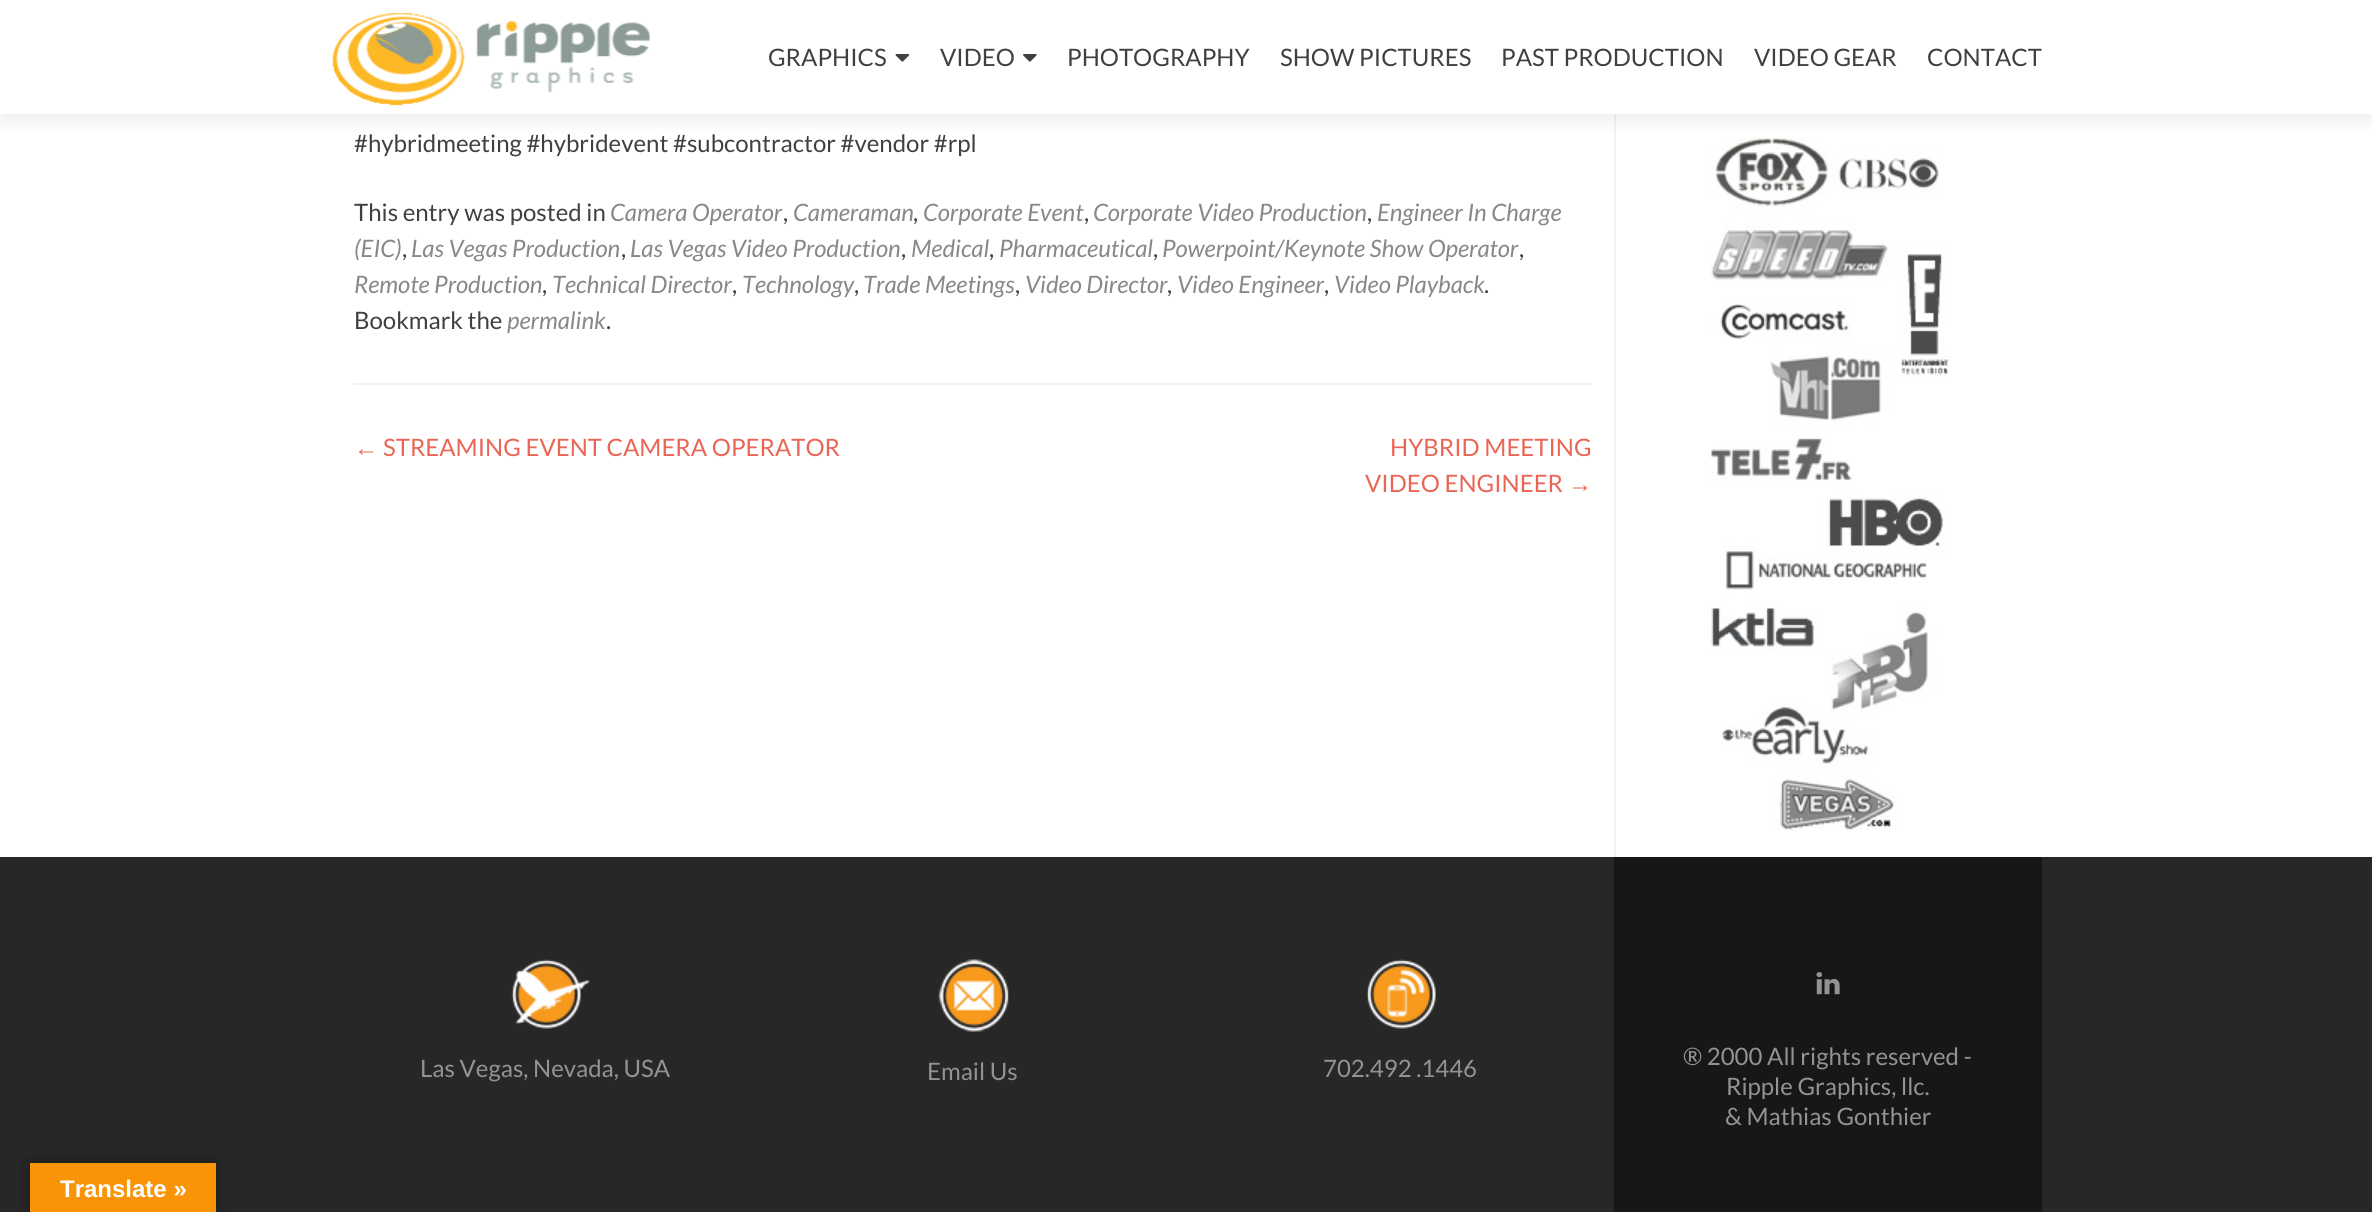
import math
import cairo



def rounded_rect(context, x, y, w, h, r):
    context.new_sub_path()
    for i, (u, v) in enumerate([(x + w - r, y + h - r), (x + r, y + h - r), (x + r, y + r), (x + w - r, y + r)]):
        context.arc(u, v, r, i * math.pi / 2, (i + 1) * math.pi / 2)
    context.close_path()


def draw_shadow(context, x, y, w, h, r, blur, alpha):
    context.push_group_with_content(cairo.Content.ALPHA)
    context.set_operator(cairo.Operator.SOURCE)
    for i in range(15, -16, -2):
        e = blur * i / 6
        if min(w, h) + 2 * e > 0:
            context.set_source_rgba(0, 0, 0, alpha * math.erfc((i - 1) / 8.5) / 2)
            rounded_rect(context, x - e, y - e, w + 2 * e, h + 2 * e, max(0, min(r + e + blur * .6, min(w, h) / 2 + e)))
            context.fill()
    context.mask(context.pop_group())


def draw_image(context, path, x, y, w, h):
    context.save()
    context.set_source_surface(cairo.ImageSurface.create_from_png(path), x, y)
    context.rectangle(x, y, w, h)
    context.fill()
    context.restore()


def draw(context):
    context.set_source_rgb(1, 1, 1)
    context.paint()
    context.set_source_rgb(242 / 255, 242 / 255, 242 / 255)
    context.rectangle(1614, 114, 2, 743)
    context.fill()
    draw_image(context, "images/4.png", 1698, 114, 263, 716)
    context.set_source_rgb(50 / 255, 50 / 255, 50 / 255)
    draw_shadow(context, 0, 8, 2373, 114, 0, 8, 0.08)
    context.set_source_rgb(1, 1, 1)
    context.rectangle(0, 0, 2372, 114)
    context.fill()
    draw_image(context, "images/1.png", 332, 13, 318, 93)
    draw_image(context, "images/2.png", 895, 54, 15, 8)
    draw_image(context, "images/3.png", 1023, 54, 14, 8)
    context.set_source_rgb(242 / 255, 242 / 255, 242 / 255)
    context.rectangle(354, 383, 1238, 2)
    context.fill()
    context.set_source_rgb(39 / 255, 39 / 255, 39 / 255)
    context.rectangle(0, 857, 2372, 355)
    context.fill()
    draw_image(context, "images/5.png", 511, 959, 79, 70)
    draw_image(context, "images/6.png", 938, 959, 71, 73)
    draw_image(context, "images/7.png", 1366, 959, 70, 70)
    context.set_source_rgb(23 / 255, 23 / 255, 23 / 255)
    context.rectangle(1614, 857, 428, 355)
    context.fill()
    draw_image(context, "images/8.png", 1816, 972, 24, 23)
    context.set_source_rgb(0, 0, 0)
    draw_shadow(context, 30, 1163, 186, 49, 0, 7, 0.3)
    context.set_source_rgb(248 / 255, 148 / 255, 6 / 255)
    context.rectangle(30, 1163, 186, 49)
    context.fill()
    context.select_font_face("Lato")
    context.set_font_size(24)
    context.set_source_rgb(64 / 255, 64 / 255, 64 / 255)
    context.move_to(768, 66)
    context.show_text("GRAPHICS")
    context.move_to(940, 66)
    context.show_text("VIDEO")
    context.move_to(1067, 66)
    context.show_text("PHOTOGRAPHY")
    context.move_to(1280, 66)
    context.show_text("SHOW PICTURES")
    context.move_to(1501, 66)
    context.show_text("PAST PRODUCTION")
    context.move_to(1754, 66)
    context.show_text("VIDEO GEAR")
    context.move_to(1927, 66)
    context.show_text("CONTACT")
    context.move_to(354, 152)
    context.show_text("#hybridmeeting #hybridevent #subcontractor #vendor #rpl")
    context.move_to(354, 221)
    context.show_text("This entry was posted in")
    context.select_font_face("Lato", cairo.FontSlant.ITALIC)
    context.set_source_rgb(136 / 255, 136 / 255, 136 / 255)
    context.move_to(610, 221)
    context.show_text("Camera Operator")
    context.select_font_face("Lato")
    context.set_source_rgb(64 / 255, 64 / 255, 64 / 255)
    context.move_to(783, 221)
    context.show_text(",")
    context.select_font_face("Lato", cairo.FontSlant.ITALIC)
    context.set_source_rgb(136 / 255, 136 / 255, 136 / 255)
    context.move_to(793, 221)
    context.show_text("Cameraman")
    context.select_font_face("Lato")
    context.set_source_rgb(64 / 255, 64 / 255, 64 / 255)
    context.move_to(913, 221)
    context.show_text(",")
    context.select_font_face("Lato", cairo.FontSlant.ITALIC)
    context.set_source_rgb(136 / 255, 136 / 255, 136 / 255)
    context.move_to(923, 221)
    context.show_text("Corporate Event")
    context.select_font_face("Lato")
    context.set_source_rgb(64 / 255, 64 / 255, 64 / 255)
    context.move_to(1084, 221)
    context.show_text(",")
    context.select_font_face("Lato", cairo.FontSlant.ITALIC)
    context.set_source_rgb(136 / 255, 136 / 255, 136 / 255)
    context.move_to(1093, 221)
    context.show_text("Corporate Video Production")
    context.select_font_face("Lato")
    context.set_source_rgb(64 / 255, 64 / 255, 64 / 255)
    context.move_to(1367, 221)
    context.show_text(",")
    context.select_font_face("Lato", cairo.FontSlant.ITALIC)
    context.set_source_rgb(136 / 255, 136 / 255, 136 / 255)
    context.move_to(1377, 221)
    context.show_text("Engineer In Charge")
    context.move_to(354, 257)
    context.show_text("(EIC)")
    context.select_font_face("Lato")
    context.set_source_rgb(64 / 255, 64 / 255, 64 / 255)
    context.move_to(402, 257)
    context.show_text(",")
    context.select_font_face("Lato", cairo.FontSlant.ITALIC)
    context.set_source_rgb(136 / 255, 136 / 255, 136 / 255)
    context.move_to(411, 257)
    context.show_text("Las Vegas Production")
    context.select_font_face("Lato")
    context.set_source_rgb(64 / 255, 64 / 255, 64 / 255)
    context.move_to(621, 257)
    context.show_text(",")
    context.select_font_face("Lato", cairo.FontSlant.ITALIC)
    context.set_source_rgb(136 / 255, 136 / 255, 136 / 255)
    context.move_to(630, 257)
    context.show_text("Las Vegas Video Production")
    context.select_font_face("Lato")
    context.set_source_rgb(64 / 255, 64 / 255, 64 / 255)
    context.move_to(901, 257)
    context.show_text(",")
    context.select_font_face("Lato", cairo.FontSlant.ITALIC)
    context.set_source_rgb(136 / 255, 136 / 255, 136 / 255)
    context.move_to(911, 257)
    context.show_text("Medical")
    context.select_font_face("Lato")
    context.set_source_rgb(64 / 255, 64 / 255, 64 / 255)
    context.move_to(989, 257)
    context.show_text(",")
    context.select_font_face("Lato", cairo.FontSlant.ITALIC)
    context.set_source_rgb(136 / 255, 136 / 255, 136 / 255)
    context.move_to(999, 257)
    context.show_text("Pharmaceutical")
    context.select_font_face("Lato")
    context.set_source_rgb(64 / 255, 64 / 255, 64 / 255)
    context.move_to(1153, 257)
    context.show_text(",")
    context.select_font_face("Lato", cairo.FontSlant.ITALIC)
    context.set_source_rgb(136 / 255, 136 / 255, 136 / 255)
    context.move_to(1162, 257)
    context.show_text("Powerpoint/Keynote Show Operator")
    context.select_font_face("Lato")
    context.set_source_rgb(64 / 255, 64 / 255, 64 / 255)
    context.move_to(1519, 257)
    context.show_text(",")
    context.select_font_face("Lato", cairo.FontSlant.ITALIC)
    context.set_source_rgb(136 / 255, 136 / 255, 136 / 255)
    context.move_to(354, 293)
    context.show_text("Remote Production")
    context.select_font_face("Lato")
    context.set_source_rgb(64 / 255, 64 / 255, 64 / 255)
    context.move_to(542, 293)
    context.show_text(",")
    context.select_font_face("Lato", cairo.FontSlant.ITALIC)
    context.set_source_rgb(136 / 255, 136 / 255, 136 / 255)
    context.move_to(552, 293)
    context.show_text("Technical Director")
    context.select_font_face("Lato")
    context.set_source_rgb(64 / 255, 64 / 255, 64 / 255)
    context.move_to(732, 293)
    context.show_text(",")
    context.select_font_face("Lato", cairo.FontSlant.ITALIC)
    context.set_source_rgb(136 / 255, 136 / 255, 136 / 255)
    context.move_to(742, 293)
    context.show_text("Technology")
    context.select_font_face("Lato")
    context.set_source_rgb(64 / 255, 64 / 255, 64 / 255)
    context.move_to(854, 293)
    context.show_text(",")
    context.select_font_face("Lato", cairo.FontSlant.ITALIC)
    context.set_source_rgb(136 / 255, 136 / 255, 136 / 255)
    context.move_to(863, 293)
    context.show_text("Trade Meetings")
    context.select_font_face("Lato")
    context.set_source_rgb(64 / 255, 64 / 255, 64 / 255)
    context.move_to(1015, 293)
    context.show_text(",")
    context.select_font_face("Lato", cairo.FontSlant.ITALIC)
    context.set_source_rgb(136 / 255, 136 / 255, 136 / 255)
    context.move_to(1025, 293)
    context.show_text("Video Director")
    context.select_font_face("Lato")
    context.set_source_rgb(64 / 255, 64 / 255, 64 / 255)
    context.move_to(1167, 293)
    context.show_text(",")
    context.select_font_face("Lato", cairo.FontSlant.ITALIC)
    context.set_source_rgb(136 / 255, 136 / 255, 136 / 255)
    context.move_to(1177, 293)
    context.show_text("Video Engineer")
    context.select_font_face("Lato")
    context.set_source_rgb(64 / 255, 64 / 255, 64 / 255)
    context.move_to(1324, 293)
    context.show_text(",")
    context.select_font_face("Lato", cairo.FontSlant.ITALIC)
    context.set_source_rgb(136 / 255, 136 / 255, 136 / 255)
    context.move_to(1334, 293)
    context.show_text("Video Playback")
    context.select_font_face("Lato")
    context.set_source_rgb(64 / 255, 64 / 255, 64 / 255)
    context.move_to(1484, 293)
    context.show_text(".")
    context.move_to(354, 329)
    context.show_text("Bookmark the")
    context.select_font_face("Lato", cairo.FontSlant.ITALIC)
    context.set_source_rgb(136 / 255, 136 / 255, 136 / 255)
    context.move_to(507, 329)
    context.show_text("permalink")
    context.select_font_face("Lato")
    context.set_source_rgb(64 / 255, 64 / 255, 64 / 255)
    context.move_to(606, 329)
    context.show_text(".")
    context.select_font_face("Liberation Sans")
    context.set_source_rgb(233 / 255, 102 / 255, 86 / 255)
    context.move_to(354, 456)
    context.show_text("←")
    context.select_font_face("Lato")
    context.move_to(383, 456)
    context.show_text("STREAMING EVENT CAMERA OPERATOR")
    context.move_to(1390, 456)
    context.show_text("HYBRID MEETING")
    context.move_to(1365, 492)
    context.show_text("VIDEO ENGINEER")
    context.select_font_face("Liberation Sans")
    context.move_to(1568, 492)
    context.show_text("→")
    context.select_font_face("Lato")
    context.set_source_rgb(147 / 255, 147 / 255, 147 / 255)
    context.move_to(420, 1077)
    context.show_text("Las Vegas, Nevada, USA")
    context.move_to(927, 1080)
    context.show_text("Email Us")
    context.move_to(1323, 1077)
    context.show_text("702.492 .1446")
    context.move_to(1683, 1065)
    context.show_text("® 2000 All rights reserved -")
    context.move_to(1726, 1095)
    context.show_text("Ripple Graphics, llc.")
    context.move_to(1725, 1125)
    context.show_text("& Mathias Gonthier")
    context.select_font_face("Liberation Sans", cairo.FontSlant.NORMAL, cairo.FontWeight.BOLD)
    context.set_source_rgb(1, 1, 1)
    context.move_to(60, 1197)
    context.show_text("Translate »")


surface = cairo.ImageSurface(cairo.Format.RGB24, 2372, 1212)
context = cairo.Context(surface)
options = cairo.FontOptions()
options.set_hint_metrics(cairo.HintMetrics.OFF)
options.set_hint_style(cairo.HintStyle.NONE)
context.set_font_options(options)
context.set_miter_limit(4)
draw(context)
surface.write_to_png("out.png")
